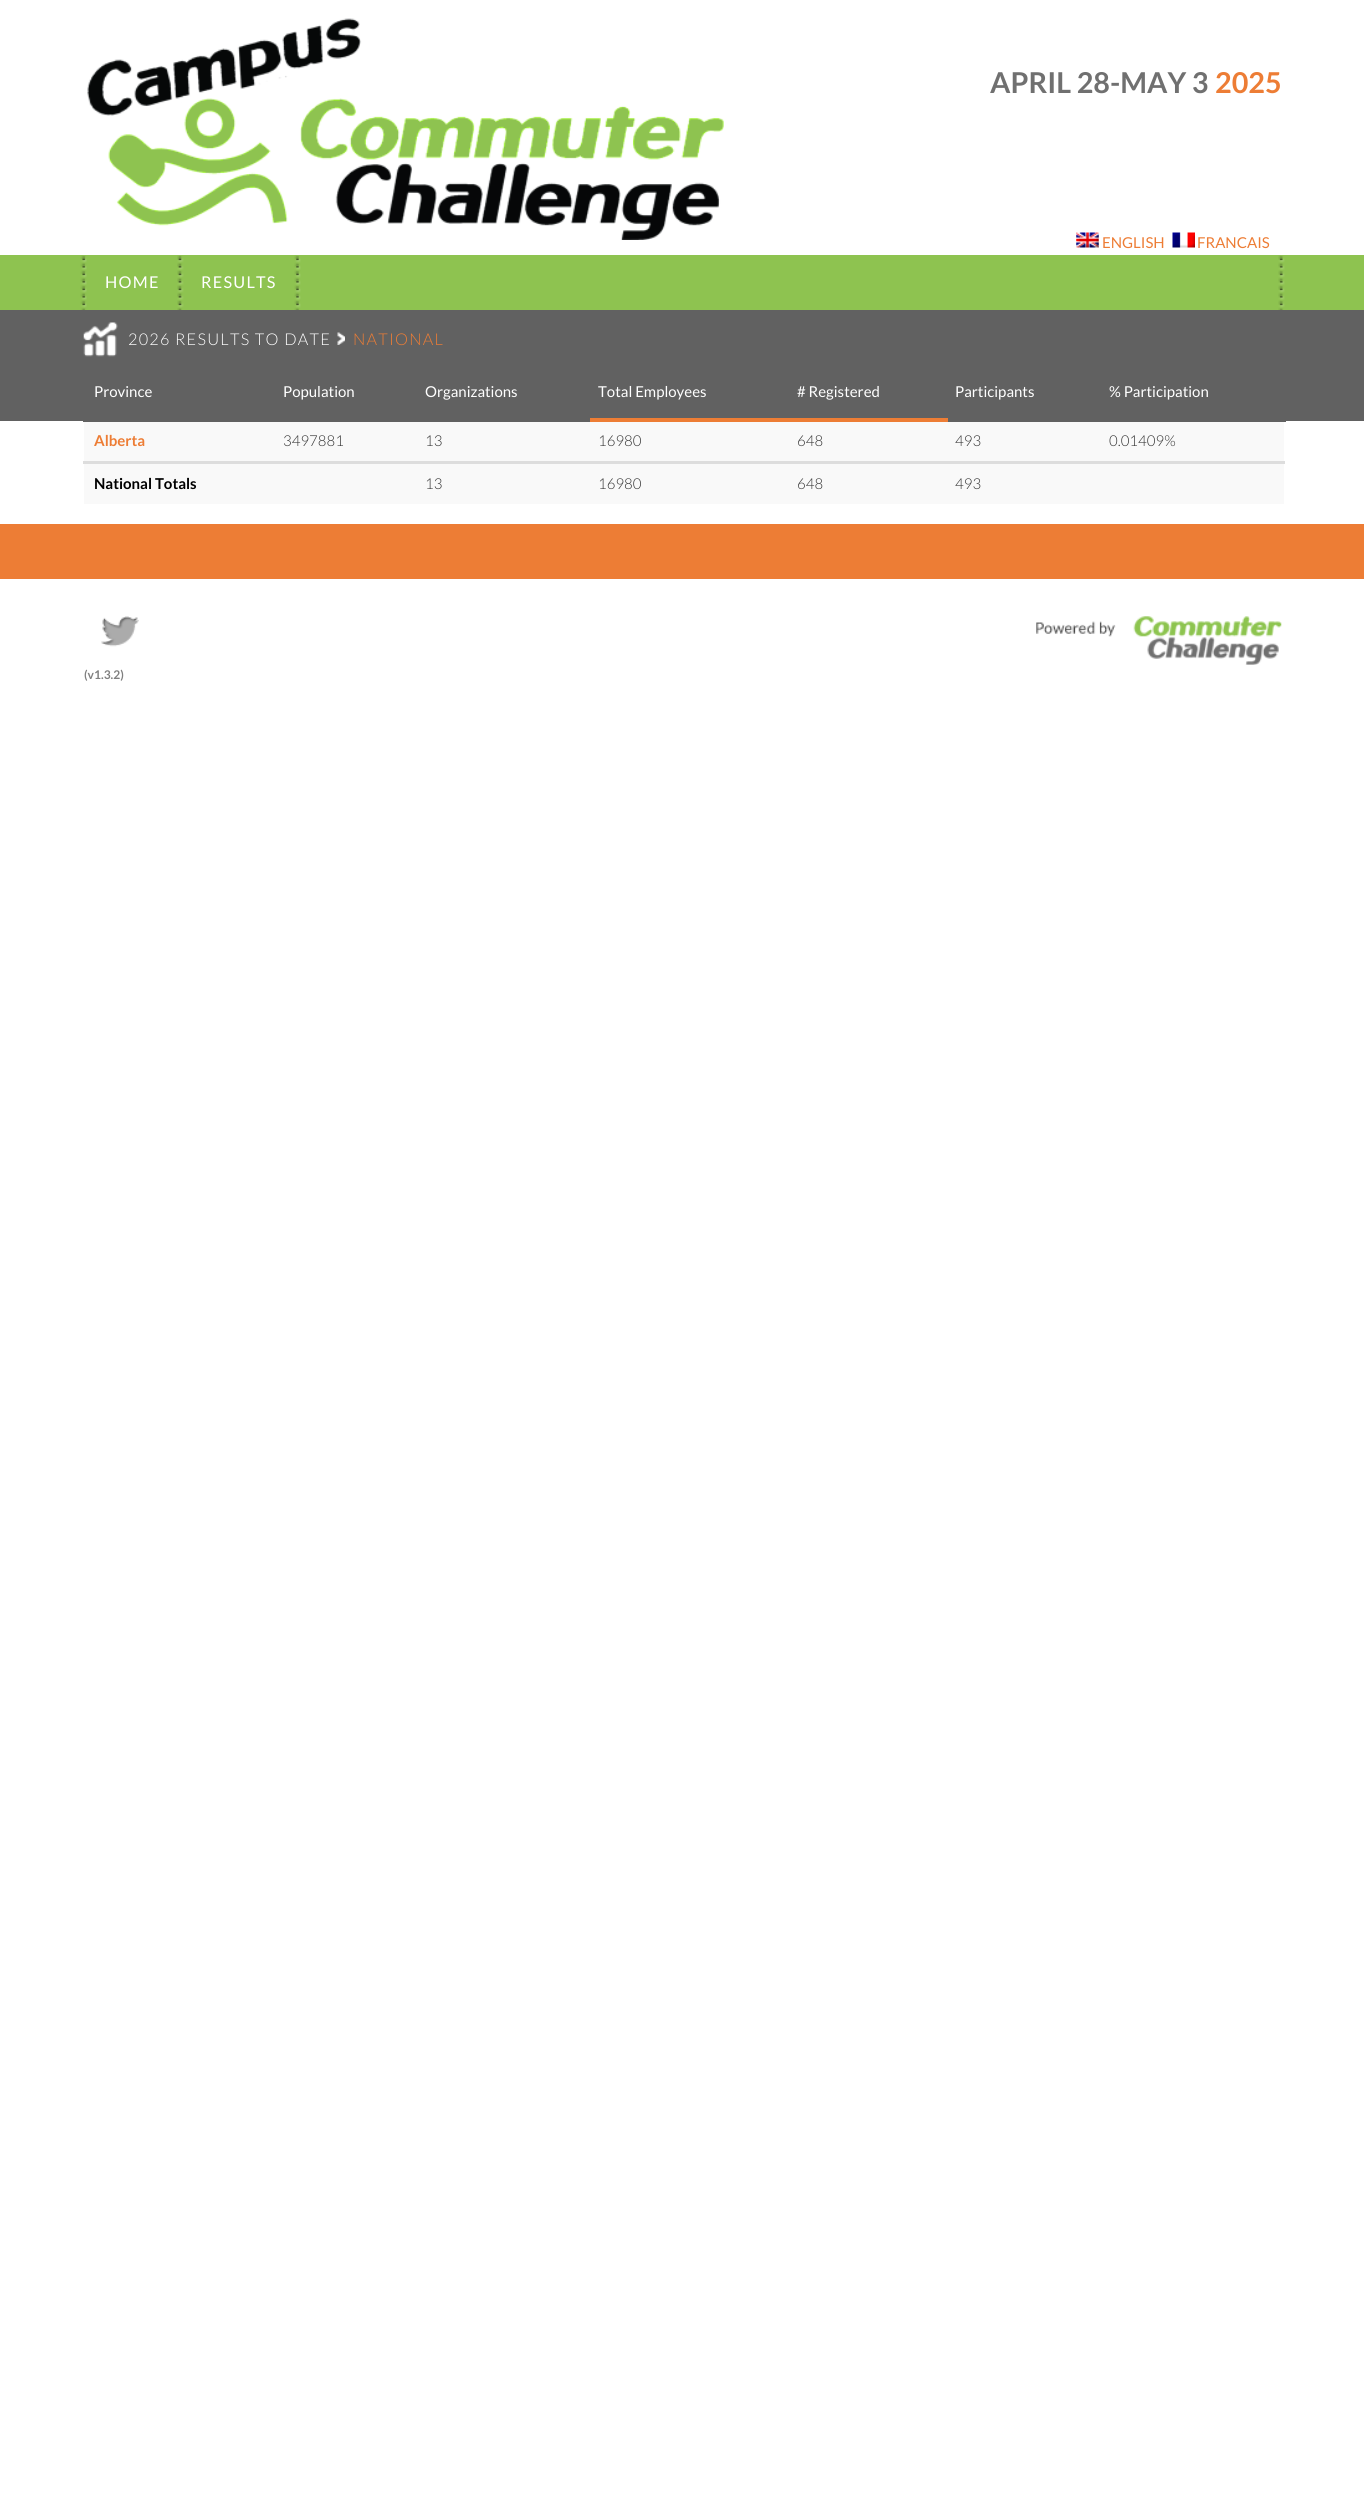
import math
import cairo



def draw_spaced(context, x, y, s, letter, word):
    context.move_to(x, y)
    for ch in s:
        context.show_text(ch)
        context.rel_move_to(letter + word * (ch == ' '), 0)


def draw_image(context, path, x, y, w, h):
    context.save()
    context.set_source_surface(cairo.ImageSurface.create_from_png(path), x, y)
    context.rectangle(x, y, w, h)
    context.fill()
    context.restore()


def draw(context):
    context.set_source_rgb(1, 1, 1)
    context.paint()
    draw_image(context, "images/1.png", 87, 18, 637, 222)
    context.set_source_rgb(142 / 255, 195 / 255, 80 / 255)
    context.rectangle(0, 255, 1364, 55)
    context.fill()
    context.set_source_rgb(97 / 255, 97 / 255, 97 / 255)
    context.rectangle(0, 310, 1364, 111)
    context.fill()
    draw_image(context, "images/2.png", 80, 255, 7, 55)
    draw_image(context, "images/3.png", 1076, 232, 23, 16)
    draw_image(context, "images/4.png", 1172, 232, 23, 16)
    draw_image(context, "images/5.png", 1278, 255, 7, 55)
    draw_image(context, "images/6.png", 177, 255, 7, 55)
    draw_image(context, "images/7.png", 294, 255, 7, 55)
    draw_image(context, "images/8.png", 83, 322, 35, 35)
    draw_image(context, "images/9.png", 337, 332, 8, 13)
    context.rectangle(944, 421, 342, 1)
    context.fill()
    context.set_source_rgb(237 / 255, 125 / 255, 53 / 255)
    context.rectangle(586, 418, 362, 4)
    context.fill()
    context.set_source_rgb(97 / 255, 97 / 255, 97 / 255)
    context.rectangle(413, 418, 177, 4)
    context.fill()
    context.rectangle(83, 421, 333, 1)
    context.fill()
    context.set_source_rgb(249 / 255, 249 / 255, 249 / 255)
    context.rectangle(84, 422, 1200, 39)
    context.fill()
    context.set_source_rgb(221 / 255, 221 / 255, 221 / 255)
    context.rectangle(83, 461, 1202, 3)
    context.fill()
    context.set_source_rgb(249 / 255, 249 / 255, 249 / 255)
    context.rectangle(84, 464, 1200, 40)
    context.fill()
    context.set_source_rgb(237 / 255, 125 / 255, 53 / 255)
    context.rectangle(0, 524, 1364, 55)
    context.fill()
    draw_image(context, "images/10.png", 101, 616, 38, 31)
    draw_image(context, "images/11.png", 1036, 616, 246, 49)
    context.select_font_face("Lato", cairo.FontSlant.NORMAL, cairo.FontWeight.BOLD)
    context.set_font_size(28.75)
    context.set_source_rgb(112 / 255, 112 / 255, 112 / 255)
    context.move_to(990, 93)
    context.show_text("APRIL 28-MAY 3")
    context.set_source_rgb(237 / 255, 125 / 255, 53 / 255)
    context.move_to(1215, 93)
    context.show_text("2025")
    context.select_font_face("Lato")
    context.set_font_size(15)
    context.move_to(1102, 248)
    context.show_text("ENGLISH")
    context.move_to(1197, 248)
    context.show_text("FRANCAIS")
    context.set_font_size(16.25)
    context.set_source_rgb(1, 1, 1)
    draw_spaced(context, 105, 288, "HOME", 1.25, 0)
    draw_spaced(context, 201, 288, "RESULTS", 1.25, 0)
    context.select_font_face("Lato Light")
    draw_spaced(context, 128, 345, "2026 RESULTS TO DATE", 1.25, 0)
    context.set_source_rgb(237 / 255, 125 / 255, 53 / 255)
    draw_spaced(context, 353, 345, "NATIONAL", 1.25, 0)
    context.select_font_face("Lato")
    context.set_font_size(15)
    context.set_source_rgb(1, 1, 1)
    context.move_to(94, 397)
    context.show_text("Province")
    context.move_to(283, 397)
    context.show_text("Population")
    context.move_to(425, 397)
    context.show_text("Organizations")
    context.move_to(598, 397)
    context.show_text("Total Employees")
    context.move_to(797, 397)
    context.show_text("# Registered")
    context.move_to(955, 397)
    context.show_text("Participants")
    context.move_to(1109, 397)
    context.show_text("% Participation")
    context.select_font_face("Lato", cairo.FontSlant.NORMAL, cairo.FontWeight.BOLD)
    context.set_source_rgb(237 / 255, 125 / 255, 53 / 255)
    context.move_to(94, 446)
    context.show_text("Alberta")
    context.select_font_face("Lato Light")
    context.set_source_rgb(51 / 255, 51 / 255, 51 / 255)
    context.move_to(283, 446)
    context.show_text("3497881")
    context.move_to(425, 446)
    context.show_text("13")
    context.move_to(598, 446)
    context.show_text("16980")
    context.move_to(797, 446)
    context.show_text("648")
    context.move_to(955, 446)
    context.show_text("493")
    context.move_to(1109, 446)
    context.show_text("0.01409%")
    context.select_font_face("Lato", cairo.FontSlant.NORMAL, cairo.FontWeight.BOLD)
    context.set_source_rgb(0, 0, 0)
    context.move_to(94, 489)
    context.show_text("National Totals")
    context.select_font_face("Lato Light")
    context.set_source_rgb(51 / 255, 51 / 255, 51 / 255)
    context.move_to(425, 489)
    context.show_text("13")
    context.move_to(598, 489)
    context.show_text("16980")
    context.move_to(797, 489)
    context.show_text("648")
    context.move_to(955, 489)
    context.show_text("493")
    context.select_font_face("Lato", cairo.FontSlant.NORMAL, cairo.FontWeight.BOLD)
    context.set_font_size(12)
    context.set_source_rgb(128 / 255, 128 / 255, 128 / 255)
    context.move_to(84, 679)
    context.show_text("(v1.3.2)")


surface = cairo.ImageSurface(cairo.Format.RGB24, 1364, 2508)
context = cairo.Context(surface)
options = cairo.FontOptions()
options.set_hint_metrics(cairo.HintMetrics.OFF)
options.set_hint_style(cairo.HintStyle.NONE)
context.set_font_options(options)
context.set_miter_limit(4)
draw(context)
surface.write_to_png("out.png")
